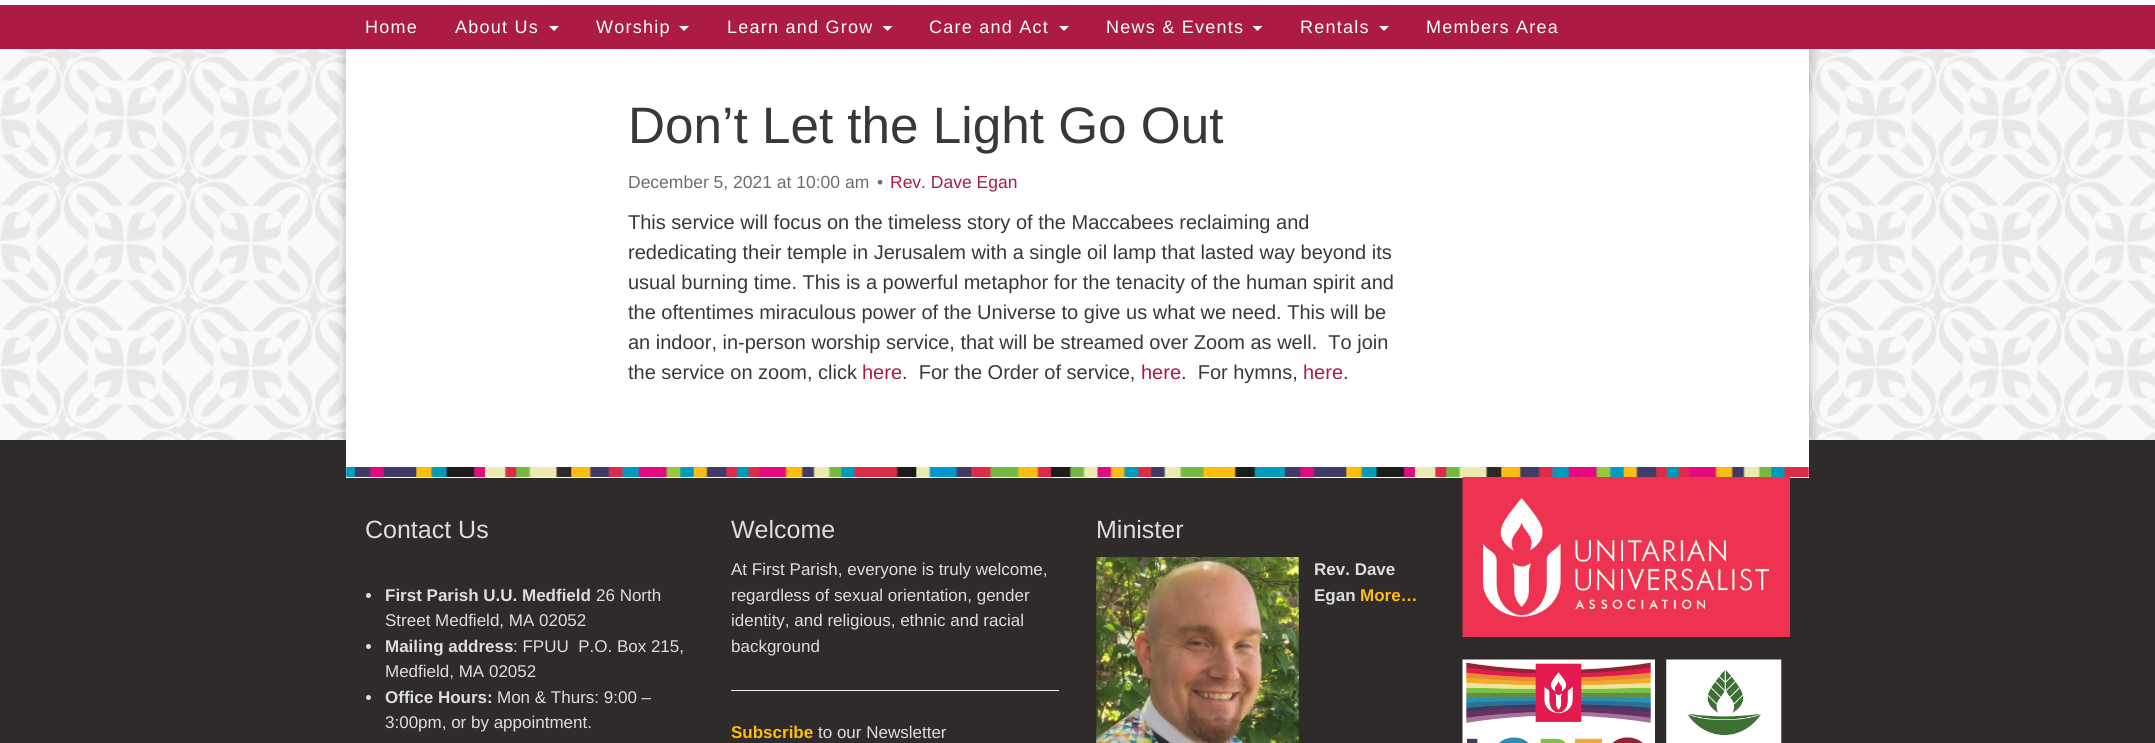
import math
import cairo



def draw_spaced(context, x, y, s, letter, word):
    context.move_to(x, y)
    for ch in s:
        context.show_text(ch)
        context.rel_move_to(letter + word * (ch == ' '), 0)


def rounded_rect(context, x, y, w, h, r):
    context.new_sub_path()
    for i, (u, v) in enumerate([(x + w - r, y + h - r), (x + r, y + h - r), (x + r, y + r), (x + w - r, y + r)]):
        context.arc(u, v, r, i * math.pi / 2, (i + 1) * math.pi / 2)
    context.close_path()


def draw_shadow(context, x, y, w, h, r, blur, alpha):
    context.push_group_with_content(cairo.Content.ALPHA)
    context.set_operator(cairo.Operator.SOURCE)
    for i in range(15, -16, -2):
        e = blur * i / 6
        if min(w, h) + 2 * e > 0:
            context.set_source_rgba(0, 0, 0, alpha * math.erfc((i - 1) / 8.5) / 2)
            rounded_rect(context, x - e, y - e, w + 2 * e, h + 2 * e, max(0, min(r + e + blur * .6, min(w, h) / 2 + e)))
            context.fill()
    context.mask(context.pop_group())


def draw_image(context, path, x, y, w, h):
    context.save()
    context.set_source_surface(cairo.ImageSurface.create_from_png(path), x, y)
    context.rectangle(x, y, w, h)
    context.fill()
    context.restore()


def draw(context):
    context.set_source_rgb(1, 1, 1)
    context.paint()
    draw_image(context, "images/1.png", 0, 49, 2155, 391)
    context.set_source_rgb(0, 0, 0)
    draw_shadow(context, 346, 49, 1463, 391, 0, 6, 0.3)
    context.set_source_rgb(171 / 255, 27 / 255, 66 / 255)
    context.rectangle(0, 5, 2155, 44)
    context.fill()
    context.set_source_rgb(1, 1, 1)
    context.new_path()
    context.move_to(549, 26)
    context.line_to(559, 26)
    context.line_to(554, 31)
    context.close_path()
    context.fill()
    context.new_path()
    context.move_to(679, 26)
    context.line_to(689, 26)
    context.line_to(684, 31)
    context.close_path()
    context.fill()
    context.new_path()
    context.move_to(882.5, 26)
    context.line_to(892.5, 26)
    context.line_to(887.5, 31)
    context.close_path()
    context.fill()
    context.new_path()
    context.move_to(1059, 26)
    context.line_to(1069, 26)
    context.line_to(1064, 31)
    context.close_path()
    context.fill()
    context.new_path()
    context.move_to(1252.5, 26)
    context.line_to(1262.5, 26)
    context.line_to(1257.5, 31)
    context.close_path()
    context.fill()
    context.new_path()
    context.move_to(1379, 26)
    context.line_to(1389, 26)
    context.line_to(1384, 31)
    context.close_path()
    context.fill()
    context.rectangle(346, 49, 1463, 391)
    context.fill()
    context.set_source_rgb(47 / 255, 43 / 255, 43 / 255)
    context.rectangle(0, 440, 2155, 303)
    context.fill()
    context.set_source_rgb(1, 1, 1)
    context.rectangle(346, 440, 1463, 38)
    context.fill()
    draw_image(context, "images/2.png", 346, 467, 1463, 10)
    context.set_source_rgb(221 / 255, 221 / 255, 221 / 255)
    context.arc(368.5, 595.5, 2.5, 0, 2 * math.pi)
    context.fill()
    context.arc(368.5, 646.5, 2.5, 0, 2 * math.pi)
    context.fill()
    context.arc(368.5, 697.5, 2.5, 0, 2 * math.pi)
    context.fill()
    context.set_source_rgb(238 / 255, 238 / 255, 238 / 255)
    context.rectangle(731, 690, 328, 1)
    context.fill()
    draw_image(context, "images/3.png", 1096, 557, 203, 186)
    draw_image(context, "images/4.png", 1462, 477, 328, 160)
    draw_image(context, "images/5.png", 1462, 659, 193, 84)
    draw_image(context, "images/6.png", 1666, 659, 116, 84)
    context.select_font_face("Liberation Sans")
    context.set_font_size(18)
    context.set_source_rgb(1, 1, 1)
    draw_spaced(context, 365, 33, "Home", 1.25, 0)
    draw_spaced(context, 455, 33, "About Us", 1.25, 0)
    draw_spaced(context, 596, 33, "Worship", 1.25, 0)
    draw_spaced(context, 727, 33, "Learn and Grow", 1.25, 0)
    draw_spaced(context, 929, 33, "Care and Act", 1.25, 0)
    draw_spaced(context, 1106, 33, "News & Events", 1.25, 0)
    draw_spaced(context, 1300, 33, "Rentals", 1.25, 0)
    draw_spaced(context, 1426, 33, "Members Area", 1.25, 0)
    context.set_font_size(51.25)
    context.set_source_rgb(55 / 255, 56 / 255, 57 / 255)
    context.move_to(628, 143)
    context.show_text("Don’t Let the Light Go Out")
    context.set_font_size(17.5)
    context.set_source_rgb(108 / 255, 109 / 255, 111 / 255)
    context.move_to(628, 188)
    context.show_text("December 5, 2021 at 10:00 am")
    context.move_to(877, 188)
    context.show_text("•")
    context.set_source_rgb(171 / 255, 27 / 255, 66 / 255)
    context.move_to(890, 188)
    context.show_text("Rev. Dave Egan")
    context.set_font_size(20)
    context.set_source_rgb(55 / 255, 56 / 255, 57 / 255)
    context.move_to(628, 229)
    context.show_text("This service will focus on the timeless story of the Maccabees reclaiming and")
    context.move_to(628, 259)
    context.show_text("rededicating their temple in Jerusalem with a single oil lamp that lasted way beyond its")
    context.move_to(628, 289)
    context.show_text("usual burning time. This is a powerful metaphor for the tenacity of the human spirit and")
    context.move_to(628, 319)
    context.show_text("the oftentimes miraculous power of the Universe to give us what we need. This will be")
    context.move_to(628, 349)
    context.show_text("an indoor, in-person worship service, that will be streamed over Zoom as well.  To join")
    context.move_to(628, 379)
    context.show_text("the service on zoom, click")
    context.set_source_rgb(171 / 255, 27 / 255, 66 / 255)
    context.move_to(862, 379)
    context.show_text("here")
    context.set_source_rgb(55 / 255, 56 / 255, 57 / 255)
    context.move_to(902, 379)
    context.show_text(".  For the Order of service,")
    context.set_source_rgb(171 / 255, 27 / 255, 66 / 255)
    context.move_to(1141, 379)
    context.show_text("here")
    context.set_source_rgb(55 / 255, 56 / 255, 57 / 255)
    context.move_to(1181, 379)
    context.show_text(".  For hymns,")
    context.set_source_rgb(171 / 255, 27 / 255, 66 / 255)
    context.move_to(1303, 379)
    context.show_text("here")
    context.set_source_rgb(55 / 255, 56 / 255, 57 / 255)
    context.move_to(1343, 379)
    context.show_text(".")
    context.set_font_size(25)
    context.set_source_rgb(221 / 255, 221 / 255, 221 / 255)
    context.move_to(365, 538)
    context.show_text("Contact Us")
    context.select_font_face("Liberation Sans", cairo.FontSlant.NORMAL, cairo.FontWeight.BOLD)
    context.set_font_size(17)
    context.move_to(385, 601)
    context.show_text("First Parish U.U. Medfield")
    context.select_font_face("Liberation Sans")
    context.move_to(596, 601)
    context.show_text("26 North")
    context.move_to(385, 626)
    context.show_text("Street Medfield, MA 02052")
    context.select_font_face("Liberation Sans", cairo.FontSlant.NORMAL, cairo.FontWeight.BOLD)
    context.move_to(385, 652)
    context.show_text("Mailing address")
    context.select_font_face("Liberation Sans")
    context.move_to(513, 652)
    context.show_text(": FPUU  P.O. Box 215,")
    context.move_to(385, 677)
    context.show_text("Medfield, MA 02052")
    context.select_font_face("Liberation Sans", cairo.FontSlant.NORMAL, cairo.FontWeight.BOLD)
    context.move_to(385, 703)
    context.show_text("Office Hours:")
    context.select_font_face("Liberation Sans")
    context.move_to(497, 703)
    context.show_text("Mon & Thurs: 9:00 –")
    context.move_to(385, 728)
    context.show_text("3:00pm, or by appointment.")
    context.set_font_size(25)
    context.move_to(731, 538)
    context.show_text("Welcome")
    context.set_font_size(17)
    context.move_to(731, 575)
    context.show_text("At First Parish, everyone is truly welcome,")
    context.move_to(731, 601)
    context.show_text("regardless of sexual orientation, gender")
    context.move_to(731, 626)
    context.show_text("identity, and religious, ethnic and racial")
    context.move_to(731, 652)
    context.show_text("background")
    context.select_font_face("Liberation Sans", cairo.FontSlant.NORMAL, cairo.FontWeight.BOLD)
    context.set_source_rgb(254 / 255, 190 / 255, 16 / 255)
    context.move_to(731, 738)
    context.show_text("Subscribe")
    context.select_font_face("Liberation Sans")
    context.set_source_rgb(221 / 255, 221 / 255, 221 / 255)
    context.move_to(818, 738)
    context.show_text("to our Newsletter")
    context.set_font_size(25)
    context.move_to(1096, 538)
    context.show_text("Minister")
    context.select_font_face("Liberation Sans", cairo.FontSlant.NORMAL, cairo.FontWeight.BOLD)
    context.set_font_size(17)
    context.move_to(1314, 575)
    context.show_text("Rev. Dave")
    context.move_to(1314, 601)
    context.show_text("Egan")
    context.set_source_rgb(254 / 255, 190 / 255, 16 / 255)
    context.move_to(1360, 601)
    context.show_text("More…")


surface = cairo.ImageSurface(cairo.Format.RGB24, 2155, 743)
context = cairo.Context(surface)
options = cairo.FontOptions()
options.set_hint_metrics(cairo.HintMetrics.OFF)
options.set_hint_style(cairo.HintStyle.NONE)
context.set_font_options(options)
context.set_miter_limit(4)
draw(context)
surface.write_to_png("out.png")
